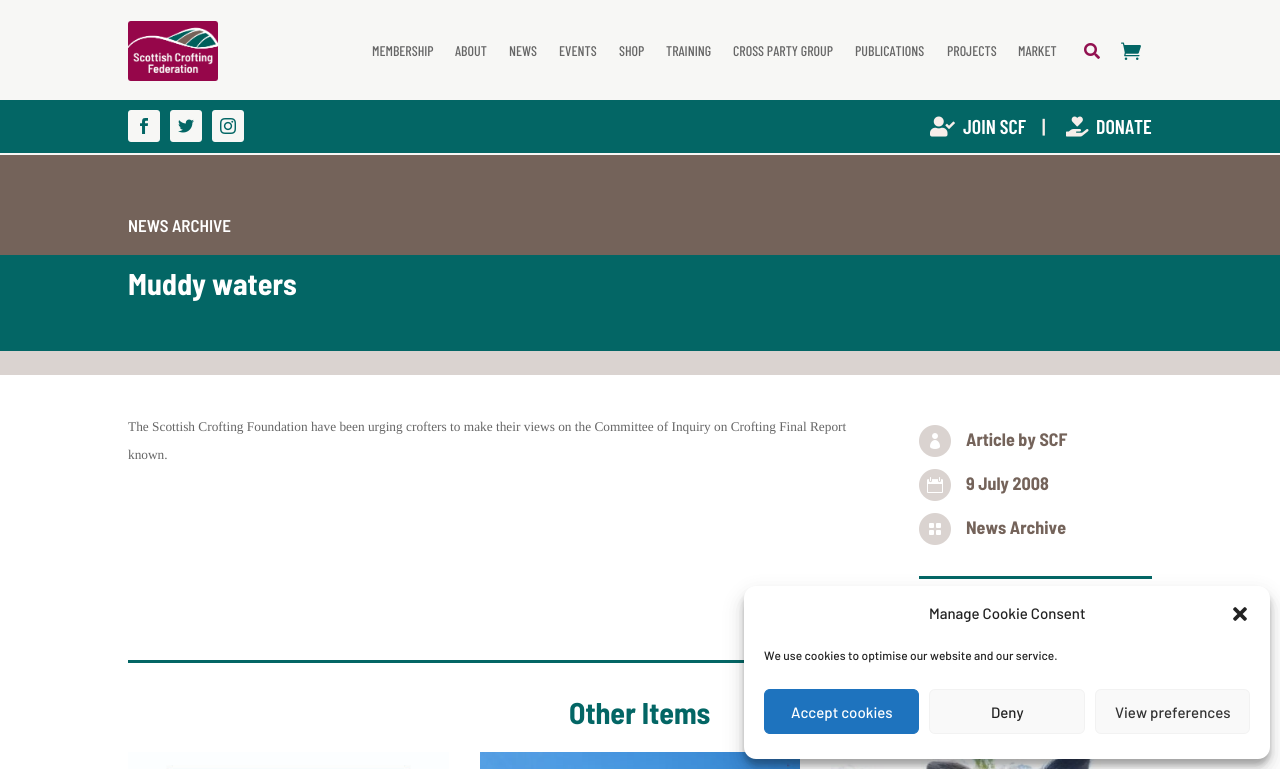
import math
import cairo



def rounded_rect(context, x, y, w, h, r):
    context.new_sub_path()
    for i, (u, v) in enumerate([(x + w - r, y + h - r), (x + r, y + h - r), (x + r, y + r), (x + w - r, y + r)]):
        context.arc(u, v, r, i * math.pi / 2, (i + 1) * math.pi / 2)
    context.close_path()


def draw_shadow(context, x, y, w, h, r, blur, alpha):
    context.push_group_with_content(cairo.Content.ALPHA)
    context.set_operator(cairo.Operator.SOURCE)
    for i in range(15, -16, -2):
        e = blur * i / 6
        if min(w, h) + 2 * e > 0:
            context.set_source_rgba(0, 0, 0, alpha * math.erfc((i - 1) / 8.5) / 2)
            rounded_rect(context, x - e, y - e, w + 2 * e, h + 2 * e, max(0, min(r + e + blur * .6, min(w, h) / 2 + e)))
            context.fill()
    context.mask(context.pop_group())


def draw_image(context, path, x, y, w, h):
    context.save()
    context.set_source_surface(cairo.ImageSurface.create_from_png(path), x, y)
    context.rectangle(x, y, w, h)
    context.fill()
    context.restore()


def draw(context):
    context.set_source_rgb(1, 1, 1)
    context.paint()
    context.set_source_rgb(247 / 255, 247 / 255, 245 / 255)
    context.rectangle(0, 0, 1280, 155)
    context.fill()
    draw_image(context, "images/1.png", 128, 21, 90, 60)
    draw_image(context, "images/2.png", 1084, 43, 16, 16)
    draw_image(context, "images/3.png", 1121, 42, 20, 18)
    context.set_source_rgb(3 / 255, 102 / 255, 101 / 255)
    context.rectangle(0, 100, 1280, 53)
    context.fill()
    context.set_source_rgb(247 / 255, 247 / 255, 245 / 255)
    rounded_rect(context, 128, 110, 32, 32, 3)
    context.fill()
    draw_image(context, "images/4.png", 140, 118, 8, 16)
    rounded_rect(context, 170, 110, 32, 32, 3)
    context.fill()
    draw_image(context, "images/5.png", 178, 119, 16, 14)
    rounded_rect(context, 212, 110, 32, 32, 3)
    context.fill()
    draw_image(context, "images/6.png", 220, 118, 16, 16)
    draw_image(context, "images/7.png", 930, 116, 25, 21)
    draw_image(context, "images/8.png", 1066, 116, 23, 21)
    context.set_source_rgb(116 / 255, 99 / 255, 90 / 255)
    context.rectangle(0, 155, 1280, 100)
    context.fill()
    context.set_source_rgb(3 / 255, 102 / 255, 101 / 255)
    context.rectangle(0, 255, 1280, 96)
    context.fill()
    context.set_source_rgb(218 / 255, 211 / 255, 208 / 255)
    context.rectangle(0, 351, 1280, 24)
    context.fill()
    context.arc(935, 441, 16, 0, 2 * math.pi)
    context.fill()
    draw_image(context, "images/9.png", 930, 433, 10, 16)
    context.arc(935, 485, 16, 0, 2 * math.pi)
    context.fill()
    draw_image(context, "images/10.png", 927, 477, 16, 16)
    context.arc(935, 529, 16, 0, 2 * math.pi)
    context.fill()
    draw_image(context, "images/11.png", 929, 523, 12, 12)
    context.set_source_rgb(3 / 255, 102 / 255, 101 / 255)
    context.rectangle(919, 576, 233, 3)
    context.fill()
    context.rectangle(128, 660, 616, 3)
    context.fill()
    draw_image(context, "images/12.png", 128, 752, 321, 17)
    draw_image(context, "images/13.png", 480, 752, 320, 17)
    draw_image(context, "images/14.png", 831, 759, 321, 10)
    context.set_source_rgb(0, 0, 0)
    draw_shadow(context, 744, 592, 526, 173, 12, 3, 0.23)
    draw_shadow(context, 744, 596, 526, 173, 12, 10, 0.19)
    context.set_source_rgb(1, 1, 1)
    rounded_rect(context, 744, 586, 526, 173, 12)
    context.fill()
    draw_image(context, "images/15.png", 1233, 607, 14, 14)
    context.set_source_rgb(30 / 255, 115 / 255, 190 / 255)
    rounded_rect(context, 764.5, 689.5, 154, 44, 5.5)
    context.fill_preserve()
    context.set_line_width(1)
    context.stroke()
    context.set_source_rgb(249 / 255, 249 / 255, 249 / 255)
    rounded_rect(context, 929.5, 689.5, 155, 44, 5.5)
    context.fill_preserve()
    context.set_source_rgb(242 / 255, 242 / 255, 242 / 255)
    context.stroke()
    context.set_source_rgb(249 / 255, 249 / 255, 249 / 255)
    rounded_rect(context, 1095.5, 689.5, 154, 44, 5.5)
    context.fill_preserve()
    context.set_source_rgb(242 / 255, 242 / 255, 242 / 255)
    context.stroke()
    context.select_font_face("Barlow Condensed Medium")
    context.set_font_size(14)
    context.set_source_rgb(102 / 255, 102 / 255, 102 / 255)
    context.move_to(372, 56)
    context.show_text("MEMBERSHIP")
    context.move_to(455, 56)
    context.show_text("ABOUT")
    context.move_to(509, 56)
    context.show_text("NEWS")
    context.move_to(559, 56)
    context.show_text("EVENTS")
    context.move_to(619, 56)
    context.show_text("SHOP")
    context.move_to(666, 56)
    context.show_text("TRAINING")
    context.move_to(733, 56)
    context.show_text("CROSS PARTY GROUP")
    context.move_to(855, 56)
    context.show_text("PUBLICATIONS")
    context.move_to(947, 56)
    context.show_text("PROJECTS")
    context.move_to(1018, 56)
    context.show_text("MARKET")
    context.select_font_face("Barlow Condensed SemiBold")
    context.set_font_size(20)
    context.set_source_rgb(1, 1, 1)
    context.move_to(963, 134)
    context.show_text("JOIN SCF")
    context.set_source_rgb(247 / 255, 238 / 255, 234 / 255)
    context.move_to(1042, 134)
    context.show_text("|")
    context.set_source_rgb(1, 1, 1)
    context.move_to(1096, 134)
    context.show_text("DONATE")
    context.select_font_face("Barlow Semi Condensed SemiBold")
    context.set_font_size(17)
    context.move_to(128, 232)
    context.show_text("NEWS ARCHIVE")
    context.select_font_face("Barlow Semi Condensed", cairo.FontSlant.NORMAL, cairo.FontWeight.BOLD)
    context.set_font_size(30)
    context.move_to(128, 295)
    context.show_text("Muddy waters")
    context.select_font_face("Liberation Serif")
    context.set_font_size(13.33)
    context.set_source_rgb(102 / 255, 102 / 255, 102 / 255)
    context.move_to(128, 431)
    context.show_text("The Scottish Crofting Foundation have been urging crofters to make their views on the Committee of Inquiry on Crofting Final Report")
    context.move_to(128, 459)
    context.show_text("known.")
    context.select_font_face("Barlow Semi Condensed", cairo.FontSlant.NORMAL, cairo.FontWeight.BOLD)
    context.set_font_size(18)
    context.set_source_rgb(116 / 255, 99 / 255, 90 / 255)
    context.move_to(966, 446)
    context.show_text("Article by SCF")
    context.move_to(966, 490)
    context.show_text("9 July 2008")
    context.move_to(966, 534)
    context.show_text("News Archive")
    context.set_font_size(30)
    context.set_source_rgb(3 / 255, 102 / 255, 101 / 255)
    context.move_to(569, 724)
    context.show_text("Other Items")
    context.select_font_face("Barlow Medium")
    context.set_font_size(15)
    context.set_source_rgb(34 / 255, 34 / 255, 34 / 255)
    context.move_to(929, 619)
    context.show_text("Manage Cookie Consent")
    context.set_font_size(12)
    context.move_to(764, 660)
    context.show_text("We use cookies to optimise our website and our service.")
    context.set_font_size(15)
    context.set_source_rgb(1, 1, 1)
    context.move_to(791, 718)
    context.show_text("Accept cookies")
    context.set_source_rgb(34 / 255, 34 / 255, 34 / 255)
    context.move_to(991, 718)
    context.show_text("Deny")
    context.set_source_rgb(51 / 255, 51 / 255, 51 / 255)
    context.move_to(1115, 718)
    context.show_text("View preferences")


surface = cairo.ImageSurface(cairo.Format.RGB24, 1280, 769)
context = cairo.Context(surface)
options = cairo.FontOptions()
options.set_hint_metrics(cairo.HintMetrics.OFF)
options.set_hint_style(cairo.HintStyle.NONE)
context.set_font_options(options)
context.set_miter_limit(4)
draw(context)
surface.write_to_png("out.png")
